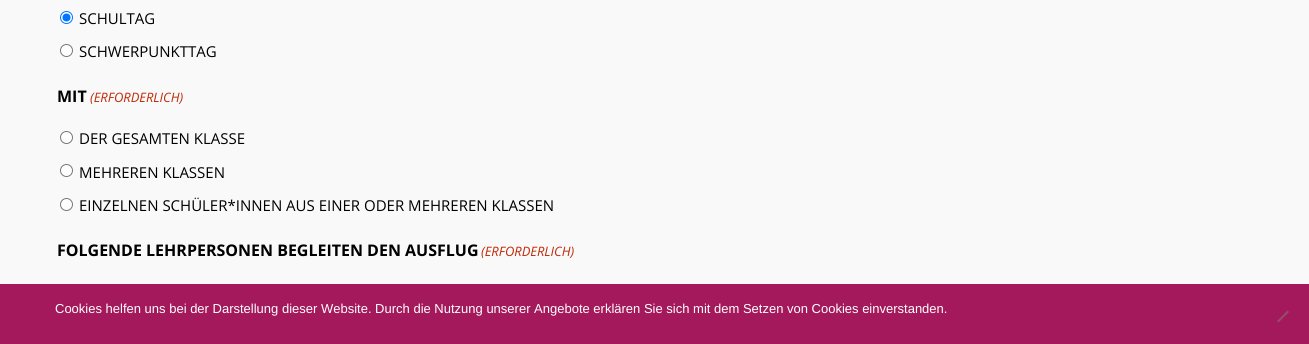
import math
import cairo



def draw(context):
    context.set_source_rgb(250 / 255, 249 / 255, 249 / 255)
    context.paint()
    context.set_source_rgb(1, 1, 1)
    context.arc(66.5, 17.5, 6, 0, 2 * math.pi)
    context.fill_preserve()
    context.set_source_rgb(0, 117 / 255, 1)
    context.set_line_width(1)
    context.stroke()
    context.arc(66.5, 17.5, 4, 0, 2 * math.pi)
    context.fill()
    context.set_source_rgb(1, 1, 1)
    context.arc(66.5, 50.5, 6, 0, 2 * math.pi)
    context.fill_preserve()
    context.set_source_rgb(118 / 255, 118 / 255, 118 / 255)
    context.stroke()
    context.set_source_rgb(1, 1, 1)
    context.arc(66.5, 137.5, 6, 0, 2 * math.pi)
    context.fill_preserve()
    context.set_source_rgb(118 / 255, 118 / 255, 118 / 255)
    context.stroke()
    context.set_source_rgb(1, 1, 1)
    context.arc(66.5, 170.5, 6, 0, 2 * math.pi)
    context.fill_preserve()
    context.set_source_rgb(118 / 255, 118 / 255, 118 / 255)
    context.stroke()
    context.set_source_rgb(1, 1, 1)
    context.arc(66.5, 204.5, 6, 0, 2 * math.pi)
    context.fill_preserve()
    context.set_source_rgb(118 / 255, 118 / 255, 118 / 255)
    context.stroke()
    context.set_source_rgb(163 / 255, 25 / 255, 91 / 255)
    context.rectangle(0, 284, 1309, 60)
    context.fill()
    context.set_source_rgb(146 / 255, 77 / 255, 110 / 255)
    context.new_path()
    context.move_to(1287.5, 310.5)
    context.line_to(1289, 312)
    context.line_to(1278.5, 322.5)
    context.line_to(1277, 321)
    context.close_path()
    context.fill()
    context.select_font_face("Open Sans")
    context.set_font_size(15)
    context.set_source_rgb(0, 0, 0)
    context.move_to(79, 24)
    context.show_text("SCHULTAG")
    context.move_to(79, 57)
    context.show_text("SCHWERPUNKTTAG")
    context.select_font_face("Open Sans", cairo.FontSlant.NORMAL, cairo.FontWeight.BOLD)
    context.set_font_size(16)
    context.move_to(57, 102)
    context.show_text("MIT")
    context.select_font_face("Open Sans", cairo.FontSlant.ITALIC)
    context.set_font_size(13)
    context.set_source_rgb(192 / 255, 43 / 255, 10 / 255)
    context.move_to(90, 102)
    context.show_text("(ERFORDERLICH)")
    context.select_font_face("Open Sans")
    context.set_font_size(15)
    context.set_source_rgb(0, 0, 0)
    context.move_to(79, 144)
    context.show_text("DER GESAMTEN KLASSE")
    context.move_to(79, 178)
    context.show_text("MEHREREN KLASSEN")
    context.move_to(79, 211)
    context.show_text("EINZELNEN SCHÜLER*INNEN AUS EINER ODER MEHREREN KLASSEN")
    context.select_font_face("Open Sans", cairo.FontSlant.NORMAL, cairo.FontWeight.BOLD)
    context.set_font_size(16)
    context.move_to(57, 256)
    context.show_text("FOLGENDE LEHRPERSONEN BEGLEITEN DEN AUSFLUG")
    context.select_font_face("Open Sans", cairo.FontSlant.ITALIC)
    context.set_font_size(13)
    context.set_source_rgb(192 / 255, 43 / 255, 10 / 255)
    context.move_to(481, 256)
    context.show_text("(ERFORDERLICH)")
    context.select_font_face("Liberation Sans")
    context.set_source_rgb(1, 1, 1)
    context.move_to(55, 313)
    context.show_text("Cookies helfen uns bei der Darstellung dieser Website. Durch die Nutzung unserer Angebote erklären Sie sich mit dem Setzen von Cookies einverstanden.")


surface = cairo.ImageSurface(cairo.Format.RGB24, 1309, 344)
context = cairo.Context(surface)
options = cairo.FontOptions()
options.set_hint_metrics(cairo.HintMetrics.OFF)
options.set_hint_style(cairo.HintStyle.NONE)
context.set_font_options(options)
context.set_miter_limit(4)
draw(context)
surface.write_to_png("out.png")
